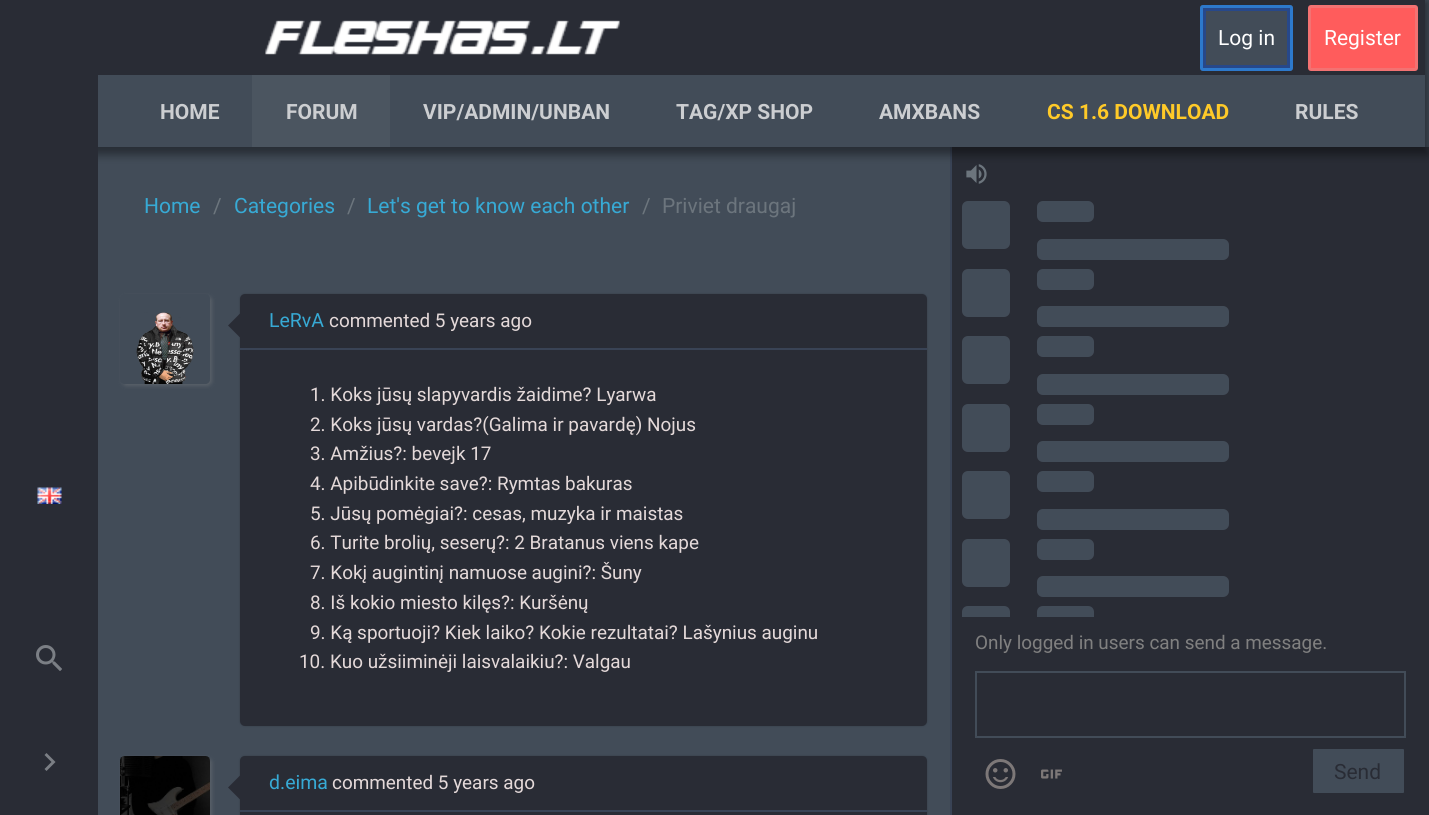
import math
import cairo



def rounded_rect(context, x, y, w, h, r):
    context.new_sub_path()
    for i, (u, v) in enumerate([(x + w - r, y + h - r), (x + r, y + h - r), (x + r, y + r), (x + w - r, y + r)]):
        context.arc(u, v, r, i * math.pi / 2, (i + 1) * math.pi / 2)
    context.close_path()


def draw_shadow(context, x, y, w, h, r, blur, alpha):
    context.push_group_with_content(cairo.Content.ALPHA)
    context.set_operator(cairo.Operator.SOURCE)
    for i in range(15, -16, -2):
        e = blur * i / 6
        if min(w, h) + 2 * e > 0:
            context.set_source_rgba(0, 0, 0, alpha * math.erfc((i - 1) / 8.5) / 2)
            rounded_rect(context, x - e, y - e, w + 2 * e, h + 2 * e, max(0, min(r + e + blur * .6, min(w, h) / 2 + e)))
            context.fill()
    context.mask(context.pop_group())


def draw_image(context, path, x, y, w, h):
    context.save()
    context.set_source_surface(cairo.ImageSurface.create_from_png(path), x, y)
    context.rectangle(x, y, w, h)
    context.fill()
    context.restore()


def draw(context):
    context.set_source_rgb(66 / 255, 76 / 255, 88 / 255)
    context.paint()
    context.set_source_rgb(41 / 255, 44 / 255, 53 / 255)
    context.rectangle(952, 147, 477, 668)
    context.fill()
    context.set_source_rgb(57 / 255, 67 / 255, 85 / 255)
    context.rectangle(950, 147, 2, 668)
    context.fill()
    draw_image(context, "images/6.png", 966, 164, 21, 20)
    context.save()
    context.set_fill_rule(cairo.FillRule.EVEN_ODD)
    context.new_path()
    context.move_to(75, 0)
    context.line_to(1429, 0)
    context.line_to(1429, 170)
    context.line_to(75, 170)
    context.close_path()
    context.move_to(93, 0)
    context.line_to(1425, 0)
    context.line_to(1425, 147)
    context.line_to(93, 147)
    context.close_path()
    context.clip()
    context.set_source_rgb(0, 0, 0)
    draw_shadow(context, 90, 2, 1338, 153, 0, 4.5, 0.4)
    context.restore()
    context.set_source_rgb(41 / 255, 44 / 255, 53 / 255)
    context.rectangle(0, 0, 98, 815)
    context.fill()
    draw_image(context, "images/1.png", 37, 487, 25, 17)
    draw_image(context, "images/2.png", 36, 645, 26, 26)
    context.set_source_rgb(123 / 255, 127 / 255, 133 / 255)
    context.new_path()
    context.move_to(44.5, 769)
    context.line_to(51.5, 762)
    context.line_to(44.5, 755)
    context.line_to(46.5, 753)
    context.line_to(55.5, 762)
    context.line_to(46.5, 771)
    context.close_path()
    context.fill()
    context.set_source_rgb(41 / 255, 44 / 255, 53 / 255)
    context.rectangle(98, 0, 1327, 75)
    context.fill()
    draw_image(context, "images/3.png", 265, 20, 355, 35)
    context.set_source_rgb(66 / 255, 76 / 255, 88 / 255)
    rounded_rect(context, 1200, 5, 93, 66, 3)
    context.fill()
    context.rectangle(1204.5, 9.5, 84, 57)
    context.set_source_rgb(39 / 255, 72 / 255, 138 / 255)
    context.set_line_width(3)
    context.stroke()
    rounded_rect(context, 1201.5, 6.5, 90, 63, 1.5)
    context.set_source_rgb(45 / 255, 121 / 255, 204 / 255)
    context.stroke()
    context.set_source_rgb(1, 92 / 255, 92 / 255)
    rounded_rect(context, 1309.5, 6.5, 107, 63, 1.5)
    context.fill_preserve()
    context.set_source_rgb(243 / 255, 114 / 255, 114 / 255)
    context.stroke()
    context.set_source_rgb(75 / 255, 85 / 255, 96 / 255)
    context.rectangle(252, 75, 138, 72)
    context.fill()
    context.save()
    context.set_fill_rule(cairo.FillRule.EVEN_ODD)
    context.new_path()
    context.move_to(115, 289)
    context.line_to(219, 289)
    context.line_to(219, 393)
    context.line_to(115, 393)
    context.close_path()
    context.move_to(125, 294)
    context.line_to(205, 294)
    context.curve_to(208, 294, 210, 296, 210, 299)
    context.line_to(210, 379)
    context.curve_to(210, 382, 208, 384, 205, 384)
    context.line_to(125, 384)
    context.curve_to(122, 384, 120, 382, 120, 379)
    context.line_to(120, 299)
    context.curve_to(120, 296, 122, 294, 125, 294)
    context.close_path()
    context.clip()
    context.set_source_rgb(139 / 255, 139 / 255, 139 / 255)
    draw_shadow(context, 122, 296, 90, 90, 5, 2, 0.32)
    context.restore()
    draw_image(context, "images/4.png", 136, 312, 58, 72)
    context.set_source_rgb(0, 0, 0)
    draw_shadow(context, 240, 294, 687, 432, 5, 1, 0.2)
    context.set_source_rgb(41 / 255, 44 / 255, 53 / 255)
    rounded_rect(context, 240, 294, 687, 432, 5)
    context.fill()
    context.set_source_rgb(57 / 255, 67 / 255, 85 / 255)
    context.rectangle(240, 348, 687, 2)
    context.fill()
    context.set_source_rgb(41 / 255, 44 / 255, 53 / 255)
    context.new_path()
    context.move_to(240, 313.5)
    context.line_to(240, 337.5)
    context.line_to(228, 325.5)
    context.close_path()
    context.fill()
    context.set_source_rgb(139 / 255, 139 / 255, 139 / 255)
    draw_shadow(context, 122, 758, 90, 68, 5, 2, 0.32)
    draw_image(context, "images/5.png", 120, 756, 90, 59)
    context.set_source_rgb(0, 0, 0)
    draw_shadow(context, 240, 756, 687, 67, 5, 1, 0.2)
    context.set_source_rgb(41 / 255, 44 / 255, 53 / 255)
    context.new_path()
    context.move_to(245, 756)
    context.line_to(922, 756)
    context.curve_to(925, 756, 927, 758, 927, 761)
    context.line_to(927, 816)
    context.line_to(240, 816)
    context.line_to(240, 761)
    context.curve_to(240, 758, 242, 756, 245, 756)
    context.close_path()
    context.fill()
    context.set_source_rgb(57 / 255, 67 / 255, 85 / 255)
    context.rectangle(240, 810, 687, 2)
    context.fill()
    context.set_source_rgb(41 / 255, 44 / 255, 53 / 255)
    context.new_path()
    context.move_to(240, 775.5)
    context.line_to(240, 799.5)
    context.line_to(228, 787.5)
    context.close_path()
    context.fill()
    context.set_source_rgb(66 / 255, 76 / 255, 88 / 255)
    rounded_rect(context, 962, 201, 48, 48, 6)
    context.fill()
    rounded_rect(context, 1037, 201, 57, 21, 6)
    context.fill()
    rounded_rect(context, 1037, 239, 192, 21, 6)
    context.fill()
    rounded_rect(context, 962, 269, 48, 48, 6)
    context.fill()
    rounded_rect(context, 1037, 269, 57, 21, 6)
    context.fill()
    rounded_rect(context, 1037, 306, 192, 21, 6)
    context.fill()
    rounded_rect(context, 962, 336, 48, 48, 6)
    context.fill()
    rounded_rect(context, 1037, 336, 57, 21, 6)
    context.fill()
    rounded_rect(context, 1037, 374, 192, 21, 6)
    context.fill()
    rounded_rect(context, 962, 404, 48, 48, 6)
    context.fill()
    rounded_rect(context, 1037, 404, 57, 21, 6)
    context.fill()
    rounded_rect(context, 1037, 441, 192, 21, 6)
    context.fill()
    rounded_rect(context, 962, 471, 48, 48, 6)
    context.fill()
    rounded_rect(context, 1037, 471, 57, 21, 6)
    context.fill()
    rounded_rect(context, 1037, 509, 192, 21, 6)
    context.fill()
    rounded_rect(context, 962, 539, 48, 48, 6)
    context.fill()
    rounded_rect(context, 1037, 539, 57, 21, 6)
    context.fill()
    rounded_rect(context, 1037, 576, 192, 21, 6)
    context.fill()
    context.new_path()
    context.move_to(968, 606)
    context.line_to(1004, 606)
    context.curve_to(1007.5, 606, 1010, 608.5, 1010, 612)
    context.line_to(1010, 617)
    context.line_to(962, 617)
    context.line_to(962, 612)
    context.curve_to(962, 608.5, 964.5, 606, 968, 606)
    context.close_path()
    context.fill()
    context.new_path()
    context.move_to(1043, 606)
    context.line_to(1088, 606)
    context.curve_to(1091.5, 606, 1094, 608.5, 1094, 612)
    context.line_to(1094, 617)
    context.line_to(1037, 617)
    context.line_to(1037, 612)
    context.curve_to(1037, 608.5, 1039.5, 606, 1043, 606)
    context.close_path()
    context.fill()
    context.rectangle(976, 672, 429, 65)
    context.set_line_width(2)
    context.stroke()
    draw_image(context, "images/7.png", 985, 759, 31, 30)
    draw_image(context, "images/8.png", 1041, 769, 21, 10)
    rounded_rect(context, 1312, 748, 93, 46, 2)
    context.fill_preserve()
    context.set_source_rgb(41 / 255, 44 / 255, 53 / 255)
    context.stroke()
    context.select_font_face("Roboto")
    context.set_font_size(21)
    context.set_source_rgb(1, 1, 1)
    context.move_to(1218, 45)
    context.show_text("Log in")
    context.move_to(1324, 45)
    context.show_text("Register")
    context.select_font_face("Roboto", cairo.FontSlant.NORMAL, cairo.FontWeight.BOLD)
    context.set_source_rgb(204 / 255, 206 / 255, 209 / 255)
    context.move_to(160, 119)
    context.show_text("HOME")
    context.move_to(286, 119)
    context.show_text("FORUM")
    context.move_to(423, 119)
    context.show_text("VIP/ADMIN/UNBAN")
    context.move_to(676, 119)
    context.show_text("TAG/XP SHOP")
    context.move_to(879, 119)
    context.show_text("AMXBANS")
    context.set_source_rgb(1, 202 / 255, 40 / 255)
    context.move_to(1047, 119)
    context.show_text("CS 1.6 DOWNLOAD")
    context.set_source_rgb(204 / 255, 206 / 255, 209 / 255)
    context.move_to(1295, 119)
    context.show_text("RULES")
    context.select_font_face("Roboto")
    context.set_source_rgb(55 / 255, 170 / 255, 213 / 255)
    context.move_to(144, 213)
    context.show_text("Home")
    context.set_source_rgb(108 / 255, 117 / 255, 125 / 255)
    context.move_to(213, 213)
    context.show_text("/")
    context.set_source_rgb(55 / 255, 170 / 255, 213 / 255)
    context.move_to(234, 213)
    context.show_text("Categories")
    context.set_source_rgb(108 / 255, 117 / 255, 125 / 255)
    context.move_to(347, 213)
    context.show_text("/")
    context.set_source_rgb(55 / 255, 170 / 255, 213 / 255)
    context.move_to(367, 213)
    context.show_text("Let's get to know each other")
    context.set_source_rgb(108 / 255, 117 / 255, 125 / 255)
    context.move_to(642, 213)
    context.show_text("/")
    context.move_to(662, 213)
    context.show_text("Priviet draugaj")
    context.set_font_size(19.5)
    context.set_source_rgb(55 / 255, 170 / 255, 213 / 255)
    context.move_to(269, 327)
    context.show_text("LeRvA")
    context.set_font_size(18.9)
    context.set_source_rgb(228 / 255, 217 / 255, 217 / 255)
    context.move_to(329, 327)
    context.show_text("commented 5 years ago")
    context.move_to(310, 401)
    context.show_text("1. Koks jūsų slapyvardis žaidime? Lyarwa")
    context.move_to(310, 431)
    context.show_text("2. Koks jūsų vardas?(Galima ir pavardę) Nojus")
    context.move_to(310, 460)
    context.show_text("3. Amžius?: bevejk 17")
    context.move_to(310, 490)
    context.show_text("4. Apibūdinkite save?: Rymtas bakuras")
    context.move_to(310, 520)
    context.show_text("5. Jūsų pomėgiai?: cesas, muzyka ir maistas")
    context.move_to(310, 549)
    context.show_text("6. Turite brolių, seserų?: 2 Bratanus viens kape")
    context.move_to(310, 579)
    context.show_text("7. Kokį augintinį namuose augini?: Šuny")
    context.move_to(310, 609)
    context.show_text("8. Iš kokio miesto kilęs?: Kuršėnų")
    context.move_to(310, 639)
    context.show_text("9. Ką sportuoji? Kiek laiko? Kokie rezultatai? Lašynius auginu")
    context.move_to(299, 668)
    context.show_text("10. Kuo užsiiminėji laisvalaikiu?: Valgau")
    context.set_font_size(19.5)
    context.set_source_rgb(55 / 255, 170 / 255, 213 / 255)
    context.move_to(269, 789)
    context.show_text("d.eima")
    context.set_font_size(18.9)
    context.set_source_rgb(228 / 255, 217 / 255, 217 / 255)
    context.move_to(332, 789)
    context.show_text("commented 5 years ago")
    context.set_source_rgb(128 / 255, 128 / 255, 128 / 255)
    context.move_to(975, 649)
    context.show_text("Only logged in users can send a message.")
    context.set_font_size(21)
    context.set_source_rgb(41 / 255, 44 / 255, 53 / 255)
    context.move_to(1334, 779)
    context.show_text("Send")


surface = cairo.ImageSurface(cairo.Format.RGB24, 1429, 815)
context = cairo.Context(surface)
options = cairo.FontOptions()
options.set_hint_metrics(cairo.HintMetrics.OFF)
options.set_hint_style(cairo.HintStyle.NONE)
context.set_font_options(options)
context.set_miter_limit(4)
draw(context)
surface.write_to_png("out.png")
